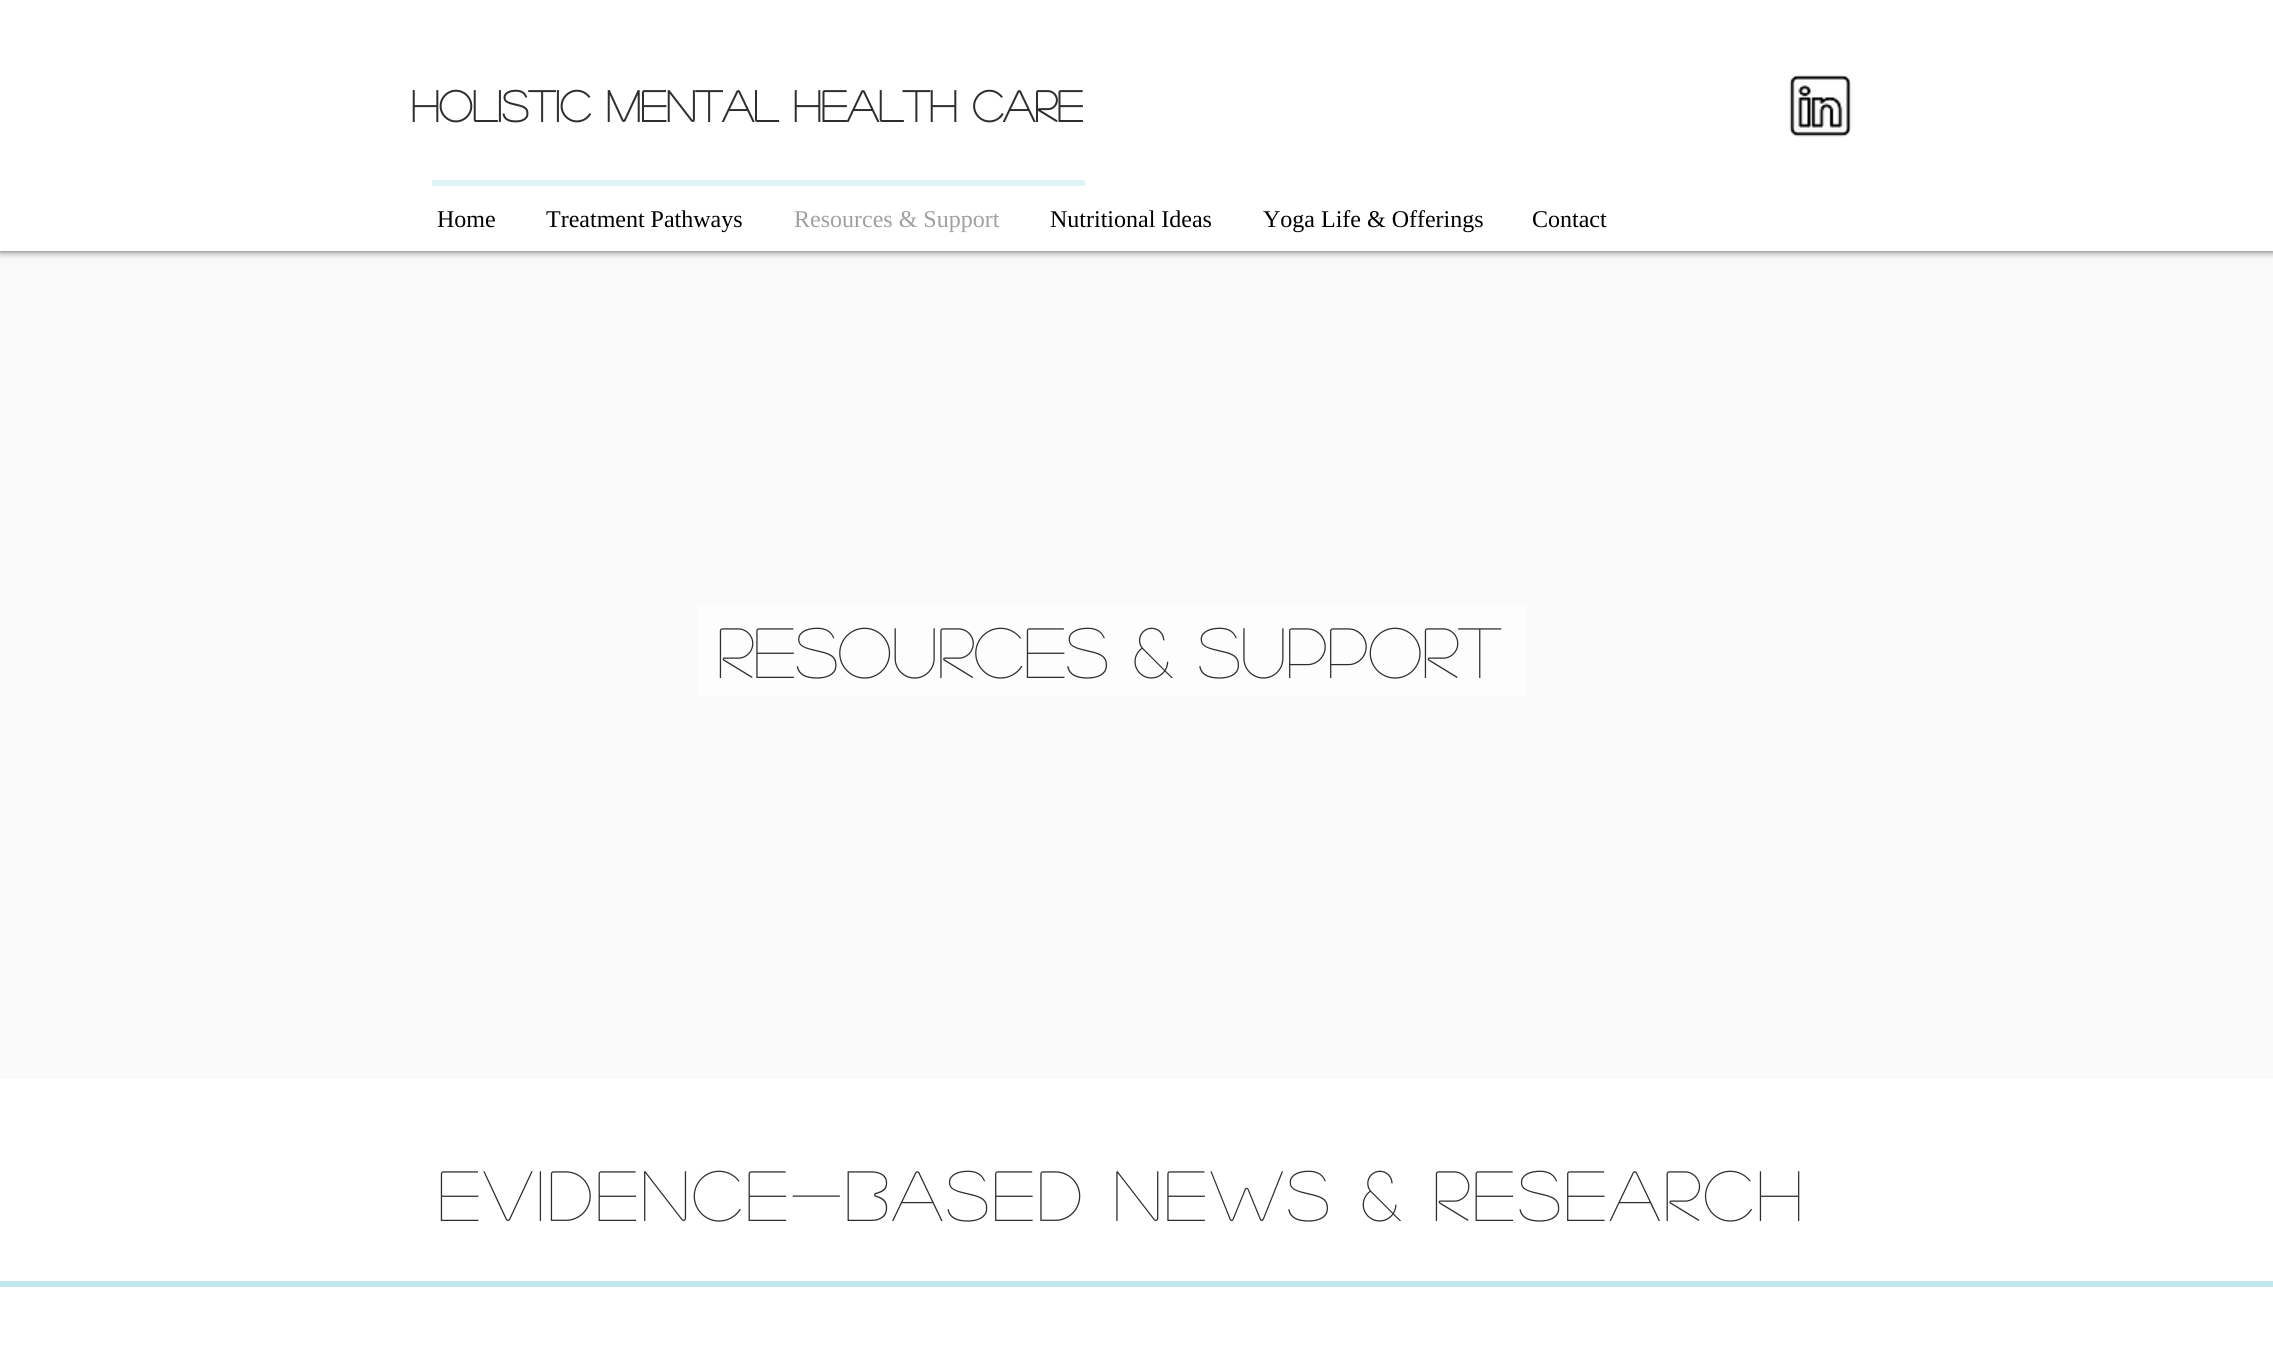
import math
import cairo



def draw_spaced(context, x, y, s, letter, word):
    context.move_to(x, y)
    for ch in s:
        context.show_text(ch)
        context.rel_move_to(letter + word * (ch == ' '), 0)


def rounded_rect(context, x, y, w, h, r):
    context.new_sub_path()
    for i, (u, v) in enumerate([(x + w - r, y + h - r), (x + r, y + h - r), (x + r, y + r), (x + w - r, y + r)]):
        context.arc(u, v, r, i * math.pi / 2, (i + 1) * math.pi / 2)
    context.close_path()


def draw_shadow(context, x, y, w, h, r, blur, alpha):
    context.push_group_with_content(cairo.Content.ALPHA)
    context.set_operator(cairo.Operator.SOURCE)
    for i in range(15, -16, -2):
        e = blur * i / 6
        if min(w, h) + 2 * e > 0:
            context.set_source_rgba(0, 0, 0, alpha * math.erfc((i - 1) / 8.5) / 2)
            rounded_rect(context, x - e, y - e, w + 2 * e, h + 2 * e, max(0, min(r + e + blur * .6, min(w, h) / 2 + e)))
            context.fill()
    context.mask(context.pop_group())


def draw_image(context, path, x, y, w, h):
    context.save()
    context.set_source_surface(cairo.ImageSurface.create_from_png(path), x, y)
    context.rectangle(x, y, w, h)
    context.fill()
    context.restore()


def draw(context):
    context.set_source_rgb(1, 1, 1)
    context.paint()
    context.set_source_rgb(250 / 255, 250 / 255, 250 / 255)
    context.rectangle(0, 251, 2273, 828)
    context.fill()
    context.set_source_rgb(0, 0, 0)
    draw_shadow(context, 0, 0, 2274, 251, 0, 4, 0.7)
    context.set_source_rgb(1, 1, 1)
    context.rectangle(0, 0, 2273, 251)
    context.fill()
    draw_image(context, "images/1.png", 1789, 74, 63, 63)
    context.set_source_rgb(223 / 255, 242 / 255, 245 / 255)
    context.rectangle(432, 180, 653, 6)
    context.fill()
    context.set_source_rgb(253 / 255, 253 / 255, 253 / 255)
    context.rectangle(698, 605, 828, 91)
    context.fill()
    context.set_source_rgb(194 / 255, 230 / 255, 237 / 255)
    context.rectangle(0, 1281, 2273, 6)
    context.fill()
    context.select_font_face("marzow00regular", cairo.FontSlant.NORMAL, cairo.FontWeight.BOLD)
    context.set_font_size(43.5)
    context.set_source_rgb(47 / 255, 46 / 255, 46 / 255)
    context.move_to(411, 122)
    context.show_text("Holistic Mental Health Care")
    context.select_font_face("Liberation Serif")
    context.set_font_size(24)
    context.set_source_rgb(0, 0, 0)
    context.move_to(437, 227)
    context.show_text("Home")
    context.move_to(546, 227)
    context.show_text("Treatment Pathways")
    context.set_source_rgb(160 / 255, 160 / 255, 159 / 255)
    context.move_to(794, 227)
    context.show_text("Resources & Support")
    context.set_source_rgb(0, 0, 0)
    context.move_to(1050, 227)
    context.show_text("Nutritional Ideas")
    context.move_to(1263, 227)
    context.show_text("Yoga Life & Offerings")
    context.move_to(1532, 227)
    context.show_text("Contact")
    context.select_font_face("marzow00regular")
    context.set_font_size(70.5)
    context.set_source_rgb(47 / 255, 46 / 255, 46 / 255)
    context.move_to(717, 678)
    context.show_text("Resources & Support")
    draw_spaced(context, 438, 1221, "Evidence-Based News & Research", 3.5, 0)


surface = cairo.ImageSurface(cairo.Format.RGB24, 2273, 1366)
context = cairo.Context(surface)
options = cairo.FontOptions()
options.set_hint_metrics(cairo.HintMetrics.OFF)
options.set_hint_style(cairo.HintStyle.NONE)
context.set_font_options(options)
context.set_miter_limit(4)
draw(context)
surface.write_to_png("out.png")
